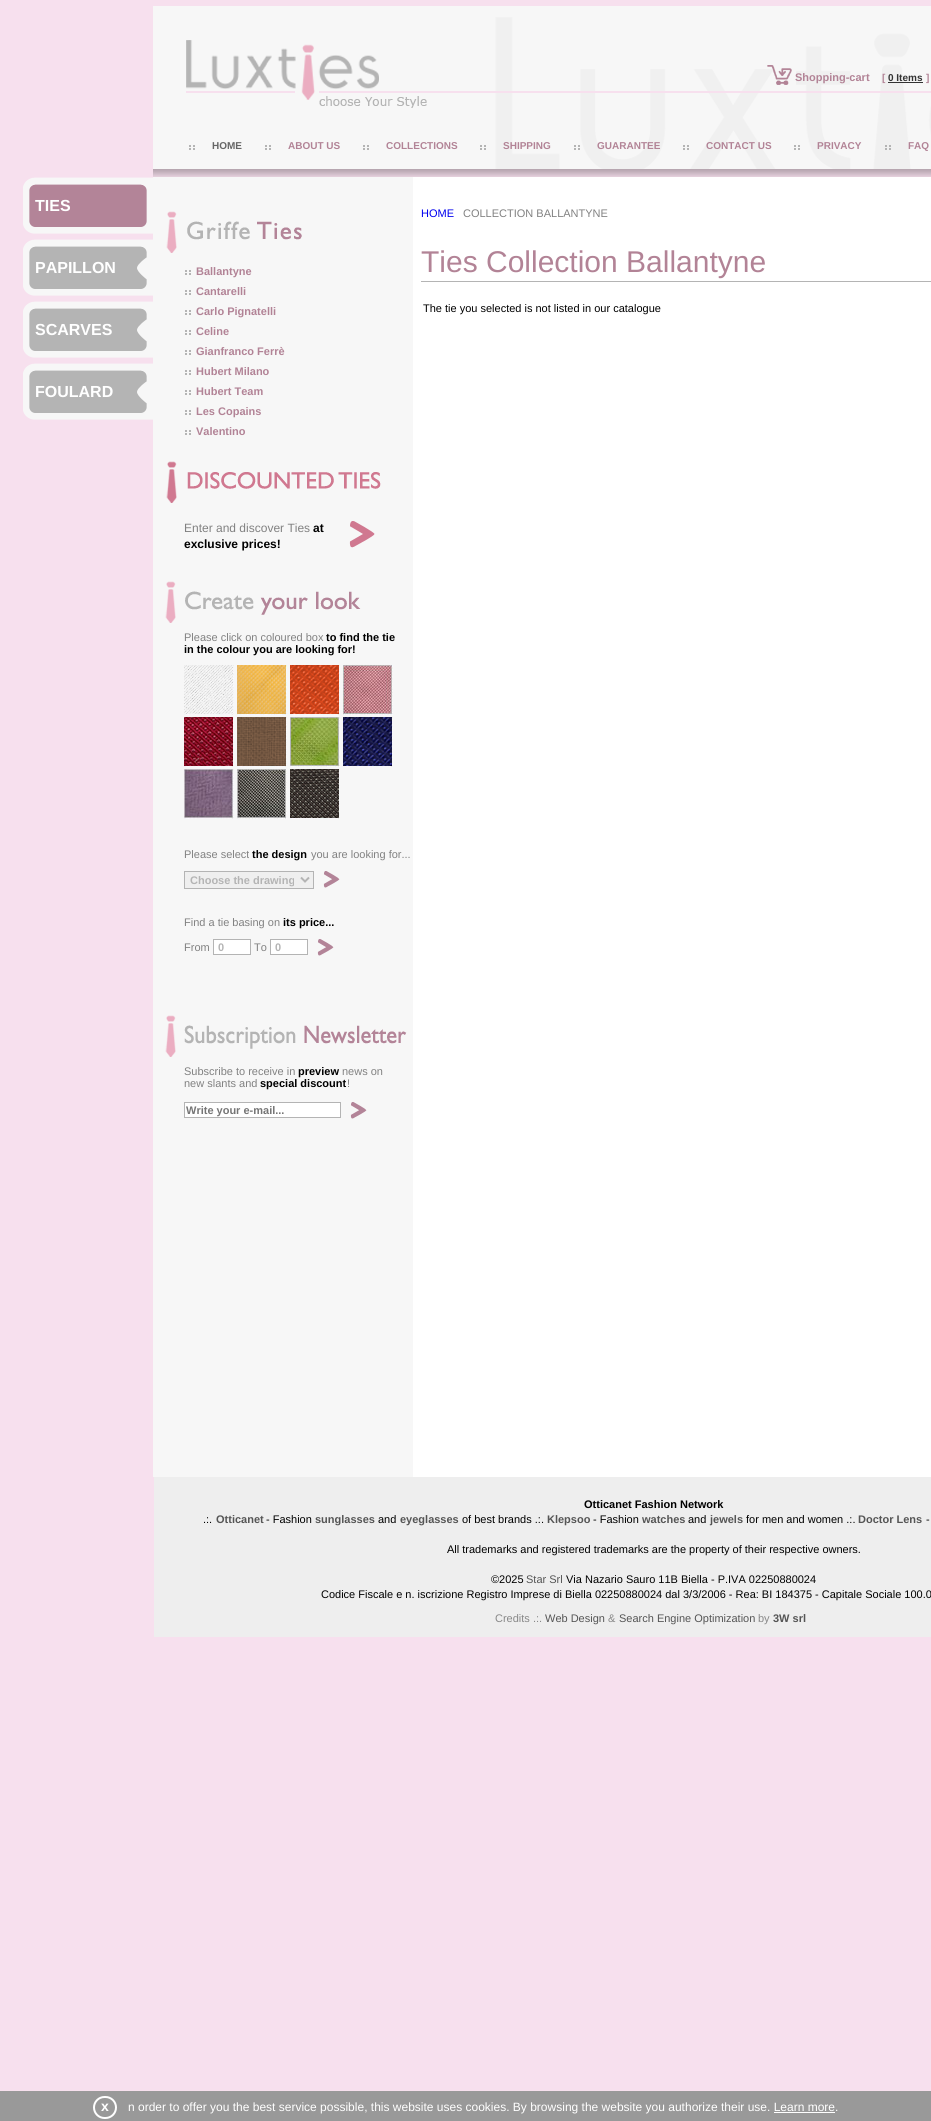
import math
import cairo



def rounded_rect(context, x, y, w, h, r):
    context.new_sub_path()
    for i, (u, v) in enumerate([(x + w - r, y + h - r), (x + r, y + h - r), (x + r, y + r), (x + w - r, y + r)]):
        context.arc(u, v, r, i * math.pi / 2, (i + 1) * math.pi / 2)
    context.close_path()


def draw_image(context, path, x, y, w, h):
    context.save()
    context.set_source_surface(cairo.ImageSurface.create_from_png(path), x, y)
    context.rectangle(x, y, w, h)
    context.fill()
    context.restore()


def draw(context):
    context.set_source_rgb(247 / 255, 224 / 255, 238 / 255)
    context.paint()
    draw_image(context, "images/1.png", 153, 6, 778, 171)
    draw_image(context, "images/2.png", 767, 65, 25, 20)
    context.set_source_rgb(51 / 255, 51 / 255, 51 / 255)
    context.rectangle(888, 82, 35, 1)
    context.fill()
    draw_image(context, "images/3.png", 189, 145, 6, 5)
    draw_image(context, "images/3.png", 265, 145, 6, 5)
    draw_image(context, "images/3.png", 363, 145, 6, 5)
    draw_image(context, "images/3.png", 480, 145, 6, 5)
    draw_image(context, "images/3.png", 574, 145, 6, 5)
    draw_image(context, "images/3.png", 683, 145, 6, 5)
    draw_image(context, "images/3.png", 794, 145, 6, 5)
    draw_image(context, "images/4.png", 885, 145, 6, 5)
    draw_image(context, "images/5.png", 23, 177, 130, 57)
    draw_image(context, "images/6.png", 23, 239, 130, 57)
    draw_image(context, "images/6.png", 23, 301, 130, 57)
    draw_image(context, "images/6.png", 23, 363, 130, 57)
    context.set_source_rgb(247 / 255, 247 / 255, 247 / 255)
    context.rectangle(153, 177, 260, 1300)
    context.fill()
    draw_image(context, "images/7.png", 166, 211, 136, 42)
    draw_image(context, "images/3.png", 185, 270, 6, 5)
    draw_image(context, "images/3.png", 185, 290, 6, 5)
    draw_image(context, "images/3.png", 185, 310, 6, 5)
    draw_image(context, "images/3.png", 185, 330, 6, 5)
    draw_image(context, "images/3.png", 185, 350, 6, 5)
    draw_image(context, "images/3.png", 185, 370, 6, 5)
    draw_image(context, "images/3.png", 185, 390, 6, 5)
    draw_image(context, "images/3.png", 185, 410, 6, 5)
    draw_image(context, "images/3.png", 185, 430, 6, 5)
    draw_image(context, "images/8.png", 166, 461, 215, 42)
    draw_image(context, "images/9.png", 349, 521, 26, 27)
    draw_image(context, "images/10.png", 165, 581, 196, 42)
    draw_image(context, "images/11.png", 184, 665, 50, 50)
    draw_image(context, "images/12.png", 237, 665, 50, 50)
    draw_image(context, "images/13.png", 290, 665, 50, 50)
    draw_image(context, "images/14.png", 343, 665, 50, 50)
    draw_image(context, "images/15.png", 184, 717, 50, 50)
    draw_image(context, "images/16.png", 237, 717, 50, 50)
    draw_image(context, "images/17.png", 290, 717, 50, 50)
    draw_image(context, "images/18.png", 343, 717, 50, 50)
    draw_image(context, "images/19.png", 184, 769, 50, 50)
    draw_image(context, "images/20.png", 237, 769, 50, 50)
    draw_image(context, "images/21.png", 290, 769, 50, 50)
    context.set_source_rgb(239 / 255, 239 / 255, 239 / 255)
    context.rectangle(184.5, 871.5, 129, 17)
    context.fill_preserve()
    context.set_source_rgb(180 / 255, 180 / 255, 180 / 255)
    context.set_line_width(1)
    context.stroke()
    context.new_path()
    context.move_to(301, 877.5)
    context.line_to(305, 881.5)
    context.line_to(309, 877.5)
    context.set_line_width(2)
    context.stroke()
    draw_image(context, "images/22.png", 323, 871, 17, 17)
    context.set_source_rgb(1, 1, 1)
    context.rectangle(213.5, 939.5, 37, 15)
    context.fill_preserve()
    context.set_source_rgb(180 / 255, 180 / 255, 180 / 255)
    context.set_line_width(1)
    context.stroke()
    context.set_source_rgb(1, 1, 1)
    context.rectangle(270.5, 939.5, 37, 15)
    context.fill_preserve()
    context.set_source_rgb(180 / 255, 180 / 255, 180 / 255)
    context.stroke()
    draw_image(context, "images/22.png", 317, 939, 17, 17)
    draw_image(context, "images/23.png", 165, 1015, 242, 42)
    context.set_source_rgb(1, 1, 1)
    context.rectangle(184.5, 1102.5, 156, 15)
    context.fill_preserve()
    context.set_source_rgb(180 / 255, 180 / 255, 180 / 255)
    context.stroke()
    draw_image(context, "images/22.png", 350, 1102, 17, 17)
    context.set_source_rgb(1, 1, 1)
    context.rectangle(413, 177, 518, 1300)
    context.fill()
    context.set_source_rgb(180 / 255, 180 / 255, 180 / 255)
    context.rectangle(421, 281, 510, 1)
    context.fill()
    context.set_source_rgb(238 / 255, 238 / 255, 238 / 255)
    context.rectangle(154, 1477, 777, 160)
    context.fill()
    context.set_source_rgb(153 / 255, 153 / 255, 153 / 255)
    context.rectangle(0, 2091, 931, 30)
    context.fill()
    rounded_rect(context, 94, 2097, 22, 21, 10.5)
    context.set_source_rgb(1, 1, 1)
    context.set_line_width(2)
    context.stroke()
    context.rectangle(774, 2112, 61, 1)
    context.fill()
    context.select_font_face("Liberation Sans", cairo.FontSlant.NORMAL, cairo.FontWeight.BOLD)
    context.set_font_size(11)
    context.set_source_rgb(178 / 255, 131 / 255, 150 / 255)
    context.move_to(795, 81)
    context.show_text("Shopping-cart")
    context.set_font_size(10)
    context.move_to(882, 81)
    context.show_text("[")
    context.set_source_rgb(51 / 255, 51 / 255, 51 / 255)
    context.move_to(888, 81)
    context.show_text("0 Items")
    context.set_source_rgb(178 / 255, 131 / 255, 150 / 255)
    context.move_to(926, 81)
    context.show_text("]")
    context.set_source_rgb(102 / 255, 102 / 255, 102 / 255)
    context.move_to(212, 149)
    context.show_text("HOME")
    context.set_source_rgb(178 / 255, 131 / 255, 150 / 255)
    context.move_to(288, 149)
    context.show_text("ABOUT US")
    context.move_to(386, 149)
    context.show_text("COLLECTIONS")
    context.move_to(503, 149)
    context.show_text("SHIPPING")
    context.move_to(597, 149)
    context.show_text("GUARANTEE")
    context.move_to(706, 149)
    context.show_text("CONTACT US")
    context.move_to(817, 149)
    context.show_text("PRIVACY")
    context.move_to(908, 149)
    context.show_text("FAQ")
    context.set_font_size(16)
    context.set_source_rgb(1, 1, 1)
    context.move_to(35, 211)
    context.show_text("TIES")
    context.move_to(35, 273)
    context.show_text("PAPILLON")
    context.move_to(35, 335)
    context.show_text("SCARVES")
    context.move_to(35, 397)
    context.show_text("FOULARD")
    context.set_font_size(11)
    context.set_source_rgb(178 / 255, 131 / 255, 150 / 255)
    context.move_to(196, 275)
    context.show_text("Ballantyne")
    context.move_to(196, 295)
    context.show_text("Cantarelli")
    context.move_to(196, 315)
    context.show_text("Carlo Pignatelli")
    context.move_to(196, 335)
    context.show_text("Celine")
    context.move_to(196, 355)
    context.show_text("Gianfranco Ferrè")
    context.move_to(196, 375)
    context.show_text("Hubert Milano")
    context.move_to(196, 395)
    context.show_text("Hubert Team")
    context.move_to(196, 415)
    context.show_text("Les Copains")
    context.move_to(196, 435)
    context.show_text("Valentino")
    context.select_font_face("Liberation Sans")
    context.set_font_size(12)
    context.set_source_rgb(129 / 255, 129 / 255, 129 / 255)
    context.move_to(184, 532)
    context.show_text("Enter and discover Ties")
    context.select_font_face("Liberation Sans", cairo.FontSlant.NORMAL, cairo.FontWeight.BOLD)
    context.set_source_rgb(0, 0, 0)
    context.move_to(313, 532)
    context.show_text("at")
    context.move_to(184, 548)
    context.show_text("exclusive prices!")
    context.select_font_face("Liberation Sans")
    context.set_font_size(11)
    context.set_source_rgb(129 / 255, 129 / 255, 129 / 255)
    context.move_to(184, 641)
    context.show_text("Please click on coloured box")
    context.select_font_face("Liberation Sans", cairo.FontSlant.NORMAL, cairo.FontWeight.BOLD)
    context.set_source_rgb(0, 0, 0)
    context.move_to(326, 641)
    context.show_text("to find the tie")
    context.move_to(184, 653)
    context.show_text("in the colour you are looking for!")
    context.select_font_face("Liberation Sans")
    context.set_source_rgb(129 / 255, 129 / 255, 129 / 255)
    context.move_to(184, 858)
    context.show_text("Please select")
    context.select_font_face("Liberation Sans", cairo.FontSlant.NORMAL, cairo.FontWeight.BOLD)
    context.set_source_rgb(0, 0, 0)
    context.move_to(252, 858)
    context.show_text("the design")
    context.select_font_face("Liberation Sans")
    context.set_source_rgb(129 / 255, 129 / 255, 129 / 255)
    context.move_to(311, 858)
    context.show_text("you are looking for...")
    context.select_font_face("Liberation Sans", cairo.FontSlant.NORMAL, cairo.FontWeight.BOLD)
    context.set_source_rgb(180 / 255, 180 / 255, 180 / 255)
    context.move_to(190, 884)
    context.show_text("Choose the drawing")
    context.select_font_face("Liberation Sans")
    context.set_source_rgb(129 / 255, 129 / 255, 129 / 255)
    context.move_to(184, 926)
    context.show_text("Find a tie basing on")
    context.select_font_face("Liberation Sans", cairo.FontSlant.NORMAL, cairo.FontWeight.BOLD)
    context.set_source_rgb(0, 0, 0)
    context.move_to(283, 926)
    context.show_text("its price...")
    context.select_font_face("Liberation Sans")
    context.set_source_rgb(129 / 255, 129 / 255, 129 / 255)
    context.move_to(184, 951)
    context.show_text("From")
    context.select_font_face("Liberation Sans", cairo.FontSlant.NORMAL, cairo.FontWeight.BOLD)
    context.set_source_rgb(180 / 255, 180 / 255, 180 / 255)
    context.move_to(218, 951)
    context.show_text("0")
    context.select_font_face("Liberation Sans")
    context.set_source_rgb(129 / 255, 129 / 255, 129 / 255)
    context.move_to(254, 951)
    context.show_text("To")
    context.select_font_face("Liberation Sans", cairo.FontSlant.NORMAL, cairo.FontWeight.BOLD)
    context.set_source_rgb(180 / 255, 180 / 255, 180 / 255)
    context.move_to(275, 951)
    context.show_text("0")
    context.select_font_face("Liberation Sans")
    context.set_source_rgb(129 / 255, 129 / 255, 129 / 255)
    context.move_to(184, 1075)
    context.show_text("Subscribe to receive in")
    context.select_font_face("Liberation Sans", cairo.FontSlant.NORMAL, cairo.FontWeight.BOLD)
    context.set_source_rgb(0, 0, 0)
    context.move_to(298, 1075)
    context.show_text("preview")
    context.select_font_face("Liberation Sans")
    context.set_source_rgb(129 / 255, 129 / 255, 129 / 255)
    context.move_to(342, 1075)
    context.show_text("news on")
    context.move_to(184, 1087)
    context.show_text("new slants and")
    context.select_font_face("Liberation Sans", cairo.FontSlant.NORMAL, cairo.FontWeight.BOLD)
    context.set_source_rgb(0, 0, 0)
    context.move_to(260, 1087)
    context.show_text("special discount")
    context.select_font_face("Liberation Sans")
    context.set_source_rgb(129 / 255, 129 / 255, 129 / 255)
    context.move_to(347, 1087)
    context.show_text("!")
    context.select_font_face("Liberation Sans", cairo.FontSlant.NORMAL, cairo.FontWeight.BOLD)
    context.set_source_rgb(117 / 255, 117 / 255, 117 / 255)
    context.move_to(186, 1114)
    context.show_text("Write your e-mail...")
    context.select_font_face("Liberation Sans")
    context.set_source_rgb(0, 0, 238 / 255)
    context.move_to(421, 217)
    context.show_text("HOME")
    context.set_source_rgb(129 / 255, 129 / 255, 129 / 255)
    context.move_to(463, 217)
    context.show_text("COLLECTION BALLANTYNE")
    context.set_font_size(30)
    context.set_source_rgb(178 / 255, 131 / 255, 150 / 255)
    context.move_to(421, 272)
    context.show_text("Ties Collection Ballantyne")
    context.set_font_size(11)
    context.set_source_rgb(0, 0, 0)
    context.move_to(423, 312)
    context.show_text("The tie you selected is not listed in our catalogue")
    context.select_font_face("Liberation Sans", cairo.FontSlant.NORMAL, cairo.FontWeight.BOLD)
    context.move_to(584, 1508)
    context.show_text("Otticanet Fashion Network")
    context.select_font_face("Liberation Sans")
    context.move_to(203, 1523)
    context.show_text(".:.")
    context.select_font_face("Liberation Sans", cairo.FontSlant.NORMAL, cairo.FontWeight.BOLD)
    context.set_source_rgb(85 / 255, 85 / 255, 85 / 255)
    context.move_to(216, 1523)
    context.show_text("Otticanet")
    context.select_font_face("Liberation Sans")
    context.set_source_rgb(0, 0, 0)
    context.move_to(266, 1523)
    context.show_text("- Fashion")
    context.select_font_face("Liberation Sans", cairo.FontSlant.NORMAL, cairo.FontWeight.BOLD)
    context.set_source_rgb(85 / 255, 85 / 255, 85 / 255)
    context.move_to(315, 1523)
    context.show_text("sunglasses")
    context.select_font_face("Liberation Sans")
    context.set_source_rgb(0, 0, 0)
    context.move_to(378, 1523)
    context.show_text("and")
    context.select_font_face("Liberation Sans", cairo.FontSlant.NORMAL, cairo.FontWeight.BOLD)
    context.set_source_rgb(85 / 255, 85 / 255, 85 / 255)
    context.move_to(400, 1523)
    context.show_text("eyeglasses")
    context.select_font_face("Liberation Sans")
    context.set_source_rgb(0, 0, 0)
    context.move_to(462, 1523)
    context.show_text("of best brands .:.")
    context.select_font_face("Liberation Sans", cairo.FontSlant.NORMAL, cairo.FontWeight.BOLD)
    context.set_source_rgb(85 / 255, 85 / 255, 85 / 255)
    context.move_to(547, 1523)
    context.show_text("Klepsoo")
    context.select_font_face("Liberation Sans")
    context.set_source_rgb(0, 0, 0)
    context.move_to(593, 1523)
    context.show_text("- Fashion")
    context.select_font_face("Liberation Sans", cairo.FontSlant.NORMAL, cairo.FontWeight.BOLD)
    context.set_source_rgb(85 / 255, 85 / 255, 85 / 255)
    context.move_to(642, 1523)
    context.show_text("watches")
    context.select_font_face("Liberation Sans")
    context.set_source_rgb(0, 0, 0)
    context.move_to(688, 1523)
    context.show_text("and")
    context.select_font_face("Liberation Sans", cairo.FontSlant.NORMAL, cairo.FontWeight.BOLD)
    context.set_source_rgb(85 / 255, 85 / 255, 85 / 255)
    context.move_to(710, 1523)
    context.show_text("jewels")
    context.select_font_face("Liberation Sans")
    context.set_source_rgb(0, 0, 0)
    context.move_to(746, 1523)
    context.show_text("for men and women .:.")
    context.select_font_face("Liberation Sans", cairo.FontSlant.NORMAL, cairo.FontWeight.BOLD)
    context.set_source_rgb(85 / 255, 85 / 255, 85 / 255)
    context.move_to(858, 1523)
    context.show_text("Doctor Lens")
    context.select_font_face("Liberation Sans")
    context.set_source_rgb(0, 0, 0)
    context.move_to(926, 1523)
    context.show_text("-")
    context.move_to(447, 1553)
    context.show_text("All trademarks and registered trademarks are the property of their respective owners.")
    context.move_to(491, 1583)
    context.show_text("©2025")
    context.set_source_rgb(85 / 255, 85 / 255, 85 / 255)
    context.move_to(526, 1583)
    context.show_text("Star Srl")
    context.set_source_rgb(0, 0, 0)
    context.move_to(566, 1583)
    context.show_text("Via Nazario Sauro 11B Biella - P.IVA 02250880024")
    context.move_to(321, 1598)
    context.show_text("Codice Fiscale e n. iscrizione Registro Imprese di Biella 02250880024 dal 3/3/2006 - Rea: BI 184375 - Capitale Sociale 100.0")
    context.set_source_rgb(136 / 255, 136 / 255, 136 / 255)
    context.move_to(495, 1622)
    context.show_text("Credits .:.")
    context.set_source_rgb(85 / 255, 85 / 255, 85 / 255)
    context.move_to(545, 1622)
    context.show_text("Web Design")
    context.set_source_rgb(136 / 255, 136 / 255, 136 / 255)
    context.move_to(608, 1622)
    context.show_text("&")
    context.set_source_rgb(85 / 255, 85 / 255, 85 / 255)
    context.move_to(619, 1622)
    context.show_text("Search Engine Optimization")
    context.set_source_rgb(136 / 255, 136 / 255, 136 / 255)
    context.move_to(758, 1622)
    context.show_text("by")
    context.select_font_face("Liberation Sans", cairo.FontSlant.NORMAL, cairo.FontWeight.BOLD)
    context.set_source_rgb(85 / 255, 85 / 255, 85 / 255)
    context.move_to(773, 1622)
    context.show_text("3W srl")
    context.set_font_size(14)
    context.set_source_rgb(1, 1, 1)
    context.move_to(101, 2111)
    context.show_text("x")
    context.select_font_face("Liberation Sans")
    context.set_font_size(12)
    context.move_to(128, 2111)
    context.show_text("n order to offer you the best service possible, this website uses cookies. By browsing the website you authorize their use. Learn more.")


surface = cairo.ImageSurface(cairo.Format.RGB24, 931, 2121)
context = cairo.Context(surface)
options = cairo.FontOptions()
options.set_hint_metrics(cairo.HintMetrics.OFF)
options.set_hint_style(cairo.HintStyle.NONE)
context.set_font_options(options)
context.set_miter_limit(4)
draw(context)
surface.write_to_png("out.png")
